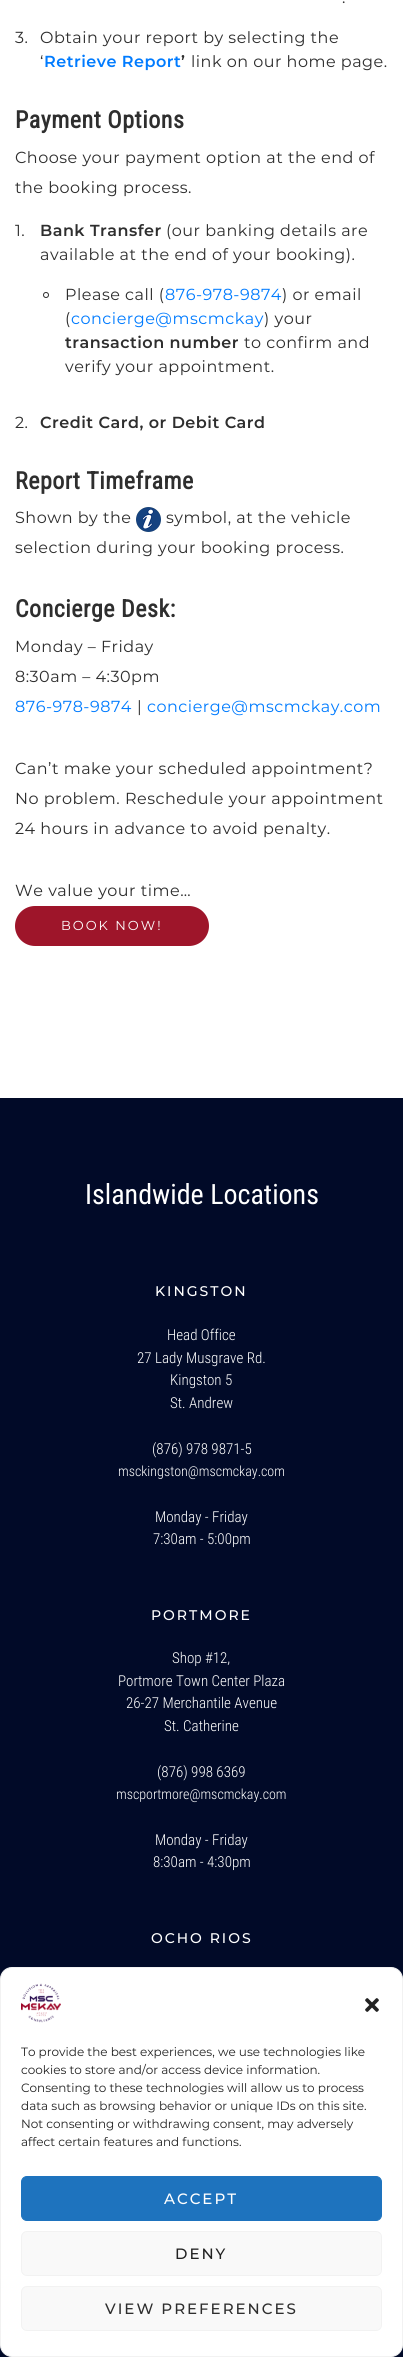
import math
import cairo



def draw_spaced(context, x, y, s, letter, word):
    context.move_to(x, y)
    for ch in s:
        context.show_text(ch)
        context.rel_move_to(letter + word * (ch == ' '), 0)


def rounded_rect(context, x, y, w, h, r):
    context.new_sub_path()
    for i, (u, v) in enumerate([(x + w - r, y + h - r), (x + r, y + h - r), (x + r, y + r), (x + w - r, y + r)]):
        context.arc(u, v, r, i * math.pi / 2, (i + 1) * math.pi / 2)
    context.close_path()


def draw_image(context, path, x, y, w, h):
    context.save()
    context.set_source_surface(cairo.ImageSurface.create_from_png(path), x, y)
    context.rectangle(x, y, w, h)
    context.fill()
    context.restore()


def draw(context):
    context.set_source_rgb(1, 1, 1)
    context.paint()
    context.arc(46, 295, 2.5, 0, 2 * math.pi)
    context.set_source_rgb(46 / 255, 46 / 255, 46 / 255)
    context.set_line_width(1)
    context.stroke()
    draw_image(context, "images/1.png", 136, 507, 25, 25)
    context.set_source_rgb(158 / 255, 21 / 255, 42 / 255)
    rounded_rect(context, 16, 907, 192, 38, 19)
    context.fill_preserve()
    context.set_line_width(2)
    context.stroke()
    context.set_source_rgb(1 / 255, 10 / 255, 40 / 255)
    context.rectangle(0, 1098, 403, 1259)
    context.fill()
    context.set_source_rgb(1, 1, 1)
    rounded_rect(context, 0.5, 1967.5, 402, 389, 11.5)
    context.fill_preserve()
    context.set_source_rgb(242 / 255, 242 / 255, 242 / 255)
    context.set_line_width(1)
    context.stroke()
    draw_image(context, "images/2.png", 21, 1983, 40, 40)
    draw_image(context, "images/3.png", 365, 1998, 14, 14)
    context.set_source_rgb(30 / 255, 115 / 255, 190 / 255)
    rounded_rect(context, 21.5, 2176.5, 360, 44, 5.5)
    context.fill_preserve()
    context.stroke()
    context.set_source_rgb(249 / 255, 249 / 255, 249 / 255)
    rounded_rect(context, 21.5, 2231.5, 360, 44, 5.5)
    context.fill_preserve()
    context.set_source_rgb(242 / 255, 242 / 255, 242 / 255)
    context.stroke()
    context.set_source_rgb(249 / 255, 249 / 255, 249 / 255)
    rounded_rect(context, 21.5, 2286.5, 360, 44, 5.5)
    context.fill_preserve()
    context.set_source_rgb(242 / 255, 242 / 255, 242 / 255)
    context.stroke()
    context.select_font_face("Montserrat")
    context.set_font_size(16)
    context.set_source_rgb(46 / 255, 46 / 255, 46 / 255)
    draw_spaced(context, 342, 3, ".", 0.5, 0)
    draw_spaced(context, 15, 43, "3.", 0.5, 0)
    draw_spaced(context, 40, 43, "Obtain your report by selecting the", 0.5, 0)
    draw_spaced(context, 40, 67, "‘", 0.5, 0)
    context.select_font_face("Montserrat SemiBold")
    context.set_source_rgb(0, 123 / 255, 1)
    draw_spaced(context, 44, 67, "Retrieve Report", 0.5, 0)
    context.set_source_rgb(46 / 255, 46 / 255, 46 / 255)
    draw_spaced(context, 181, 67, "’", 0.5, 0)
    context.select_font_face("Montserrat")
    draw_spaced(context, 191, 67, "link on our home page.", 0.5, 0)
    context.select_font_face("Roboto Condensed", cairo.FontSlant.NORMAL, cairo.FontWeight.BOLD)
    context.set_font_size(24)
    draw_spaced(context, 15, 128, "Payment Options", 0.5, 0)
    context.select_font_face("Montserrat")
    context.set_font_size(16)
    draw_spaced(context, 15, 163, "Choose your payment option at the end of", 0.5, 0)
    draw_spaced(context, 15, 193, "the booking process.", 0.5, 0)
    draw_spaced(context, 15, 236, "1.", 0.5, 0)
    context.select_font_face("Montserrat SemiBold")
    draw_spaced(context, 40, 236, "Bank Transfer", 0.5, 0)
    context.select_font_face("Montserrat")
    draw_spaced(context, 166, 236, "(our banking details are", 0.5, 0)
    draw_spaced(context, 40, 260, "available at the end of your booking).", 0.5, 0)
    draw_spaced(context, 65, 300, "Please call (", 0.5, 0)
    context.set_source_rgb(0, 123 / 255, 1)
    draw_spaced(context, 165, 300, "876-978-9874", 0.5, 0)
    context.set_source_rgb(46 / 255, 46 / 255, 46 / 255)
    draw_spaced(context, 282, 300, ") or email", 0.5, 0)
    draw_spaced(context, 65, 324, "(", 0.5, 0)
    context.set_source_rgb(0, 123 / 255, 1)
    draw_spaced(context, 71, 324, "concierge@mscmckay", 0.5, 0)
    context.set_source_rgb(46 / 255, 46 / 255, 46 / 255)
    draw_spaced(context, 264, 324, ") your", 0.5, 0)
    context.select_font_face("Montserrat SemiBold")
    draw_spaced(context, 65, 348, "transaction number", 0.5, 0)
    context.select_font_face("Montserrat")
    draw_spaced(context, 244, 348, "to confirm and", 0.5, 0)
    draw_spaced(context, 65, 372, "verify your appointment.", 0.5, 0)
    draw_spaced(context, 15, 428, "2.", 0.5, 0)
    context.select_font_face("Montserrat SemiBold")
    draw_spaced(context, 40, 428, "Credit Card, or Debit Card", 0.5, 0)
    context.select_font_face("Roboto Condensed", cairo.FontSlant.NORMAL, cairo.FontWeight.BOLD)
    context.set_font_size(24)
    draw_spaced(context, 15, 489, "Report Timeframe", 0.5, 0)
    context.select_font_face("Montserrat")
    context.set_font_size(16)
    draw_spaced(context, 15, 523, "Shown by the", 0.5, 0)
    draw_spaced(context, 166, 523, "symbol, at the vehicle", 0.5, 0)
    draw_spaced(context, 15, 553, "selection during your booking process.", 0.5, 0)
    context.select_font_face("Roboto Condensed", cairo.FontSlant.NORMAL, cairo.FontWeight.BOLD)
    context.set_font_size(24)
    draw_spaced(context, 15, 617, "Concierge Desk:", 0.5, 0)
    context.select_font_face("Montserrat")
    context.set_font_size(16)
    draw_spaced(context, 15, 652, "Monday – Friday", 0.5, 0)
    draw_spaced(context, 15, 682, "8:30am – 4:30pm", 0.5, 0)
    context.set_source_rgb(0, 123 / 255, 1)
    draw_spaced(context, 15, 712, "876-978-9874", 0.5, 0)
    context.set_source_rgb(46 / 255, 46 / 255, 46 / 255)
    draw_spaced(context, 137, 712, "|", 0.5, 0)
    context.set_source_rgb(0, 123 / 255, 1)
    draw_spaced(context, 147, 712, "concierge@mscmckay.com", 0.5, 0)
    context.set_source_rgb(46 / 255, 46 / 255, 46 / 255)
    draw_spaced(context, 15, 774, "Can’t make your scheduled appointment?", 0.5, 0)
    draw_spaced(context, 15, 804, "No problem. Reschedule your appointment", 0.5, 0)
    draw_spaced(context, 15, 834, "24 hours in advance to avoid penalty.", 0.5, 0)
    draw_spaced(context, 15, 896, "We value your time…", 0.5, 0)
    context.set_font_size(13)
    context.set_source_rgb(1, 1, 1)
    draw_spaced(context, 61, 930, "BOOK NOW!", 2, 0)
    context.select_font_face("Roboto Condensed")
    context.set_font_size(28)
    context.move_to(85, 1204)
    context.show_text("Islandwide Locations")
    context.select_font_face("Montserrat Medium")
    context.set_font_size(14)
    draw_spaced(context, 155, 1296, "KINGSTON", 2, 0)
    context.select_font_face("Roboto Condensed Light")
    context.set_font_size(15)
    context.move_to(167, 1340)
    context.show_text("Head Office")
    context.move_to(137, 1363)
    context.show_text("27 Lady Musgrave Rd.")
    context.move_to(170, 1385)
    context.show_text("Kingston 5")
    context.move_to(170, 1408)
    context.show_text("St. Andrew")
    context.move_to(152, 1454)
    context.show_text("(876) 978 9871-5")
    context.set_font_size(14)
    context.move_to(118, 1476)
    context.show_text("msckingston@mscmckay.com")
    context.set_font_size(15)
    context.move_to(155, 1522)
    context.show_text("Monday - Friday")
    context.move_to(153, 1544)
    context.show_text("7:30am - 5:00pm")
    context.select_font_face("Montserrat Medium")
    context.set_font_size(14)
    draw_spaced(context, 151, 1620, "PORTMORE", 2, 0)
    context.select_font_face("Roboto Condensed Light")
    context.set_font_size(15)
    context.move_to(172, 1663)
    context.show_text("Shop #12,")
    context.move_to(118, 1686)
    context.show_text("Portmore Town Center Plaza")
    context.move_to(126, 1708)
    context.show_text("26-27 Merchantile Avenue")
    context.move_to(164, 1731)
    context.show_text("St. Catherine")
    context.move_to(157, 1777)
    context.show_text("(876) 998 6369")
    context.set_font_size(14)
    context.move_to(116, 1799)
    context.show_text("mscportmore@mscmckay.com")
    context.set_font_size(15)
    context.move_to(155, 1845)
    context.show_text("Monday - Friday")
    context.move_to(153, 1867)
    context.show_text("8:30am - 4:30pm")
    context.select_font_face("Montserrat Medium")
    context.set_font_size(14)
    draw_spaced(context, 151, 1943, "OCHO RIOS", 2, 0)
    context.select_font_face("Montserrat")
    context.set_font_size(12)
    context.set_source_rgb(34 / 255, 34 / 255, 34 / 255)
    context.move_to(21, 2056)
    context.show_text("To provide the best experiences, we use technologies like")
    context.move_to(21, 2074)
    context.show_text("cookies to store and/or access device information.")
    context.move_to(21, 2092)
    context.show_text("Consenting to these technologies will allow us to process")
    context.move_to(21, 2110)
    context.show_text("data such as browsing behavior or unique IDs on this site.")
    context.move_to(21, 2128)
    context.show_text("Not consenting or withdrawing consent, may adversely")
    context.move_to(21, 2146)
    context.show_text("affect certain features and functions.")
    context.select_font_face("Montserrat Medium")
    context.set_font_size(15)
    context.set_source_rgb(1, 1, 1)
    draw_spaced(context, 164, 2204, "ACCEPT", 2, 0)
    context.set_source_rgb(34 / 255, 34 / 255, 34 / 255)
    draw_spaced(context, 175, 2259, "DENY", 2, 0)
    context.set_source_rgb(46 / 255, 46 / 255, 46 / 255)
    draw_spaced(context, 105, 2314, "VIEW PREFERENCES", 2, 0)


surface = cairo.ImageSurface(cairo.Format.RGB24, 403, 2357)
context = cairo.Context(surface)
options = cairo.FontOptions()
options.set_hint_metrics(cairo.HintMetrics.OFF)
options.set_hint_style(cairo.HintStyle.NONE)
context.set_font_options(options)
context.set_miter_limit(4)
draw(context)
surface.write_to_png("out.png")
